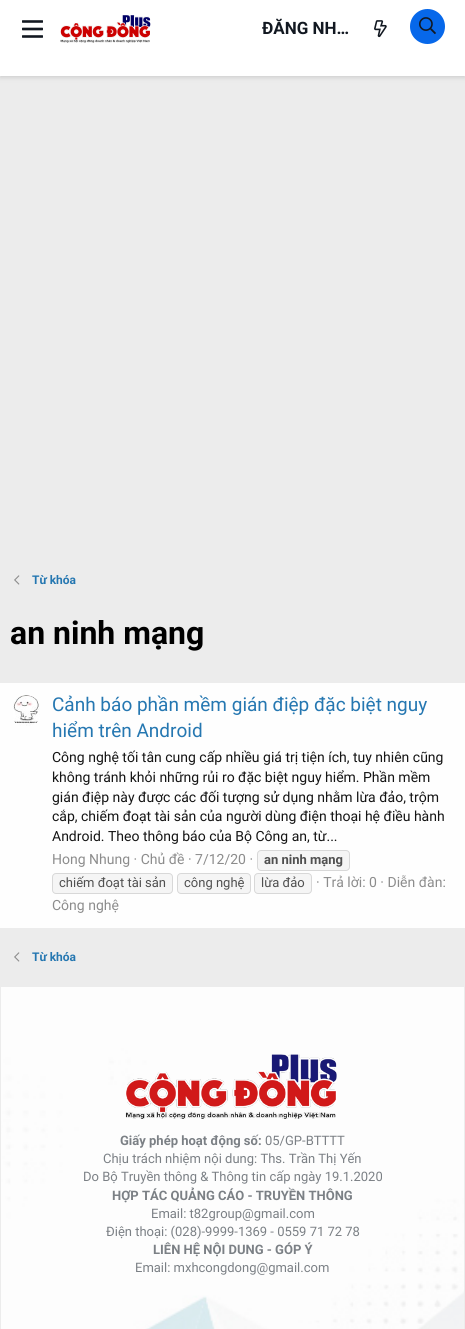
import math
import cairo



def rounded_rect(context, x, y, w, h, r):
    context.new_sub_path()
    for i, (u, v) in enumerate([(x + w - r, y + h - r), (x + r, y + h - r), (x + r, y + r), (x + w - r, y + r)]):
        context.arc(u, v, r, i * math.pi / 2, (i + 1) * math.pi / 2)
    context.close_path()


def draw_shadow(context, x, y, w, h, r, blur, alpha):
    context.push_group_with_content(cairo.Content.ALPHA)
    context.set_operator(cairo.Operator.SOURCE)
    for i in range(15, -16, -2):
        e = blur * i / 6
        if min(w, h) + 2 * e > 0:
            context.set_source_rgba(0, 0, 0, alpha * math.erfc((i - 1) / 8.5) / 2)
            rounded_rect(context, x - e, y - e, w + 2 * e, h + 2 * e, max(0, min(r + e + blur * .6, min(w, h) / 2 + e)))
            context.fill()
    context.mask(context.pop_group())


def draw_image(context, path, x, y, w, h):
    context.save()
    context.set_source_surface(cairo.ImageSurface.create_from_png(path), x, y)
    context.rectangle(x, y, w, h)
    context.fill()
    context.restore()


def draw(context):
    context.set_source_rgb(236 / 255, 236 / 255, 236 / 255)
    context.paint()
    context.set_source_rgb(182 / 255, 182 / 255, 182 / 255)
    draw_shadow(context, 0, 2, 465, 76, 0, 2, 0.5)
    context.set_source_rgb(1, 1, 1)
    context.rectangle(0, 0, 465, 76)
    context.fill()
    draw_image(context, "images/1.png", 22, 20, 21, 18)
    draw_image(context, "images/2.png", 60, 15, 91, 28)
    draw_image(context, "images/3.png", 374, 20, 13, 18)
    context.set_source_rgb(7 / 255, 104 / 255, 234 / 255)
    context.arc(427.5, 26.5, 17.5, 0, 2 * math.pi)
    context.fill()
    draw_image(context, "images/4.png", 419, 17, 17, 18)
    draw_image(context, "images/5.png", 14, 575, 6, 10)
    context.set_source_rgb(254 / 255, 254 / 255, 254 / 255)
    context.rectangle(0, 683, 465, 245)
    context.fill()
    draw_image(context, "images/6.png", 13, 695, 27, 31)
    context.set_source_rgb(245 / 255, 245 / 255, 245 / 255)
    rounded_rect(context, 257.5, 850.5, 92, 20, 3.5)
    context.fill_preserve()
    context.set_source_rgb(216 / 255, 216 / 255, 216 / 255)
    context.set_line_width(1)
    context.stroke()
    context.set_source_rgb(245 / 255, 245 / 255, 245 / 255)
    rounded_rect(context, 52.5, 873.5, 120, 20, 3.5)
    context.fill_preserve()
    context.set_source_rgb(216 / 255, 216 / 255, 216 / 255)
    context.stroke()
    context.set_source_rgb(245 / 255, 245 / 255, 245 / 255)
    rounded_rect(context, 177.5, 873.5, 73, 20, 3.5)
    context.fill_preserve()
    context.set_source_rgb(216 / 255, 216 / 255, 216 / 255)
    context.stroke()
    context.set_source_rgb(245 / 255, 245 / 255, 245 / 255)
    rounded_rect(context, 254.5, 873.5, 57, 20, 3.5)
    context.fill_preserve()
    context.set_source_rgb(216 / 255, 216 / 255, 216 / 255)
    context.stroke()
    draw_image(context, "images/5.png", 14, 952, 6, 10)
    draw_image(context, "images/7.png", 1, 987, 463, 342)
    draw_image(context, "images/8.png", 125, 1054, 212, 65)
    context.select_font_face("Roboto", cairo.FontSlant.NORMAL, cairo.FontWeight.BOLD)
    context.set_font_size(17)
    context.set_source_rgb(18 / 255, 24 / 255, 33 / 255)
    context.move_to(262, 34)
    context.show_text("ĐĂNG NH…")
    context.set_font_size(12)
    context.set_source_rgb(37 / 255, 119 / 255, 177 / 255)
    context.move_to(32, 584)
    context.show_text("Từ khóa")
    context.set_font_size(32)
    context.set_source_rgb(0, 0, 0)
    context.move_to(10, 644)
    context.show_text("an ninh mạng")
    context.select_font_face("Roboto")
    context.set_font_size(19)
    context.set_source_rgb(37 / 255, 119 / 255, 177 / 255)
    context.move_to(52, 711)
    context.show_text("Cảnh báo phần mềm gián điệp đặc biệt nguy")
    context.move_to(52, 737)
    context.show_text("hiểm trên Android")
    context.set_font_size(14)
    context.set_source_rgb(20 / 255, 20 / 255, 20 / 255)
    context.move_to(52, 762)
    context.show_text("Công nghệ tối tân cung cấp nhiều giá trị tiện ích, tuy nhiên cũng")
    context.move_to(52, 782)
    context.show_text("không tránh khỏi những rủi ro đặc biệt nguy hiểm. Phần mềm")
    context.move_to(52, 802)
    context.show_text("gián điệp này được các đối tượng sử dụng nhằm lừa đảo, trộm")
    context.move_to(52, 821)
    context.show_text("cắp, chiếm đoạt tài sản của người dùng điện thoại hệ điều hành")
    context.move_to(52, 841)
    context.show_text("Android. Theo thông báo của Bộ Công an, từ...")
    context.set_source_rgb(140 / 255, 140 / 255, 140 / 255)
    context.move_to(52, 864)
    context.show_text("Hong Nhung · Chủ đề · 7/12/20 ·")
    context.select_font_face("Roboto", cairo.FontSlant.NORMAL, cairo.FontWeight.BOLD)
    context.set_font_size(13)
    context.set_source_rgb(80 / 255, 80 / 255, 80 / 255)
    context.move_to(264, 864)
    context.show_text("an ninh mạng")
    context.select_font_face("Roboto")
    context.move_to(59, 887)
    context.show_text("chiếm đoạt tài sản")
    context.move_to(184, 887)
    context.show_text("công nghệ")
    context.move_to(261, 887)
    context.show_text("lừa đảo")
    context.set_font_size(14)
    context.set_source_rgb(140 / 255, 140 / 255, 140 / 255)
    context.move_to(316, 887)
    context.show_text("· Trả lời: 0 · Diễn đàn:")
    context.move_to(52, 910)
    context.show_text("Công nghệ")
    context.select_font_face("Roboto", cairo.FontSlant.NORMAL, cairo.FontWeight.BOLD)
    context.set_font_size(12)
    context.set_source_rgb(37 / 255, 119 / 255, 177 / 255)
    context.move_to(32, 961)
    context.show_text("Từ khóa")
    context.set_font_size(13)
    context.set_source_rgb(123 / 255, 128 / 255, 133 / 255)
    context.move_to(120, 1145)
    context.show_text("Giấy phép hoạt động số:")
    context.select_font_face("Roboto")
    context.move_to(265, 1145)
    context.show_text("05/GP-BTTTT")
    context.move_to(103, 1163)
    context.show_text("Chịu trách nhiệm nội dung: Ths. Trần Thị Yến")
    context.move_to(83, 1181)
    context.show_text("Do Bộ Truyền thông & Thông tin cấp ngày 19.1.2020")
    context.select_font_face("Roboto", cairo.FontSlant.NORMAL, cairo.FontWeight.BOLD)
    context.move_to(112, 1200)
    context.show_text("HỢP TÁC QUẢNG CÁO - TRUYỀN THÔNG")
    context.select_font_face("Roboto")
    context.move_to(151, 1218)
    context.show_text("Email: t82group@gmail.com")
    context.move_to(106, 1236)
    context.show_text("Điện thoại: (028)-9999-1369 - 0559 71 72 78")
    context.select_font_face("Roboto", cairo.FontSlant.NORMAL, cairo.FontWeight.BOLD)
    context.move_to(153, 1254)
    context.show_text("LIÊN HỆ NỘI DUNG - GÓP Ý")
    context.select_font_face("Roboto")
    context.move_to(135, 1272)
    context.show_text("Email: mxhcongdong@gmail.com")


surface = cairo.ImageSurface(cairo.Format.RGB24, 465, 1329)
context = cairo.Context(surface)
options = cairo.FontOptions()
options.set_hint_metrics(cairo.HintMetrics.OFF)
options.set_hint_style(cairo.HintStyle.NONE)
context.set_font_options(options)
context.set_miter_limit(4)
draw(context)
surface.write_to_png("out.png")
